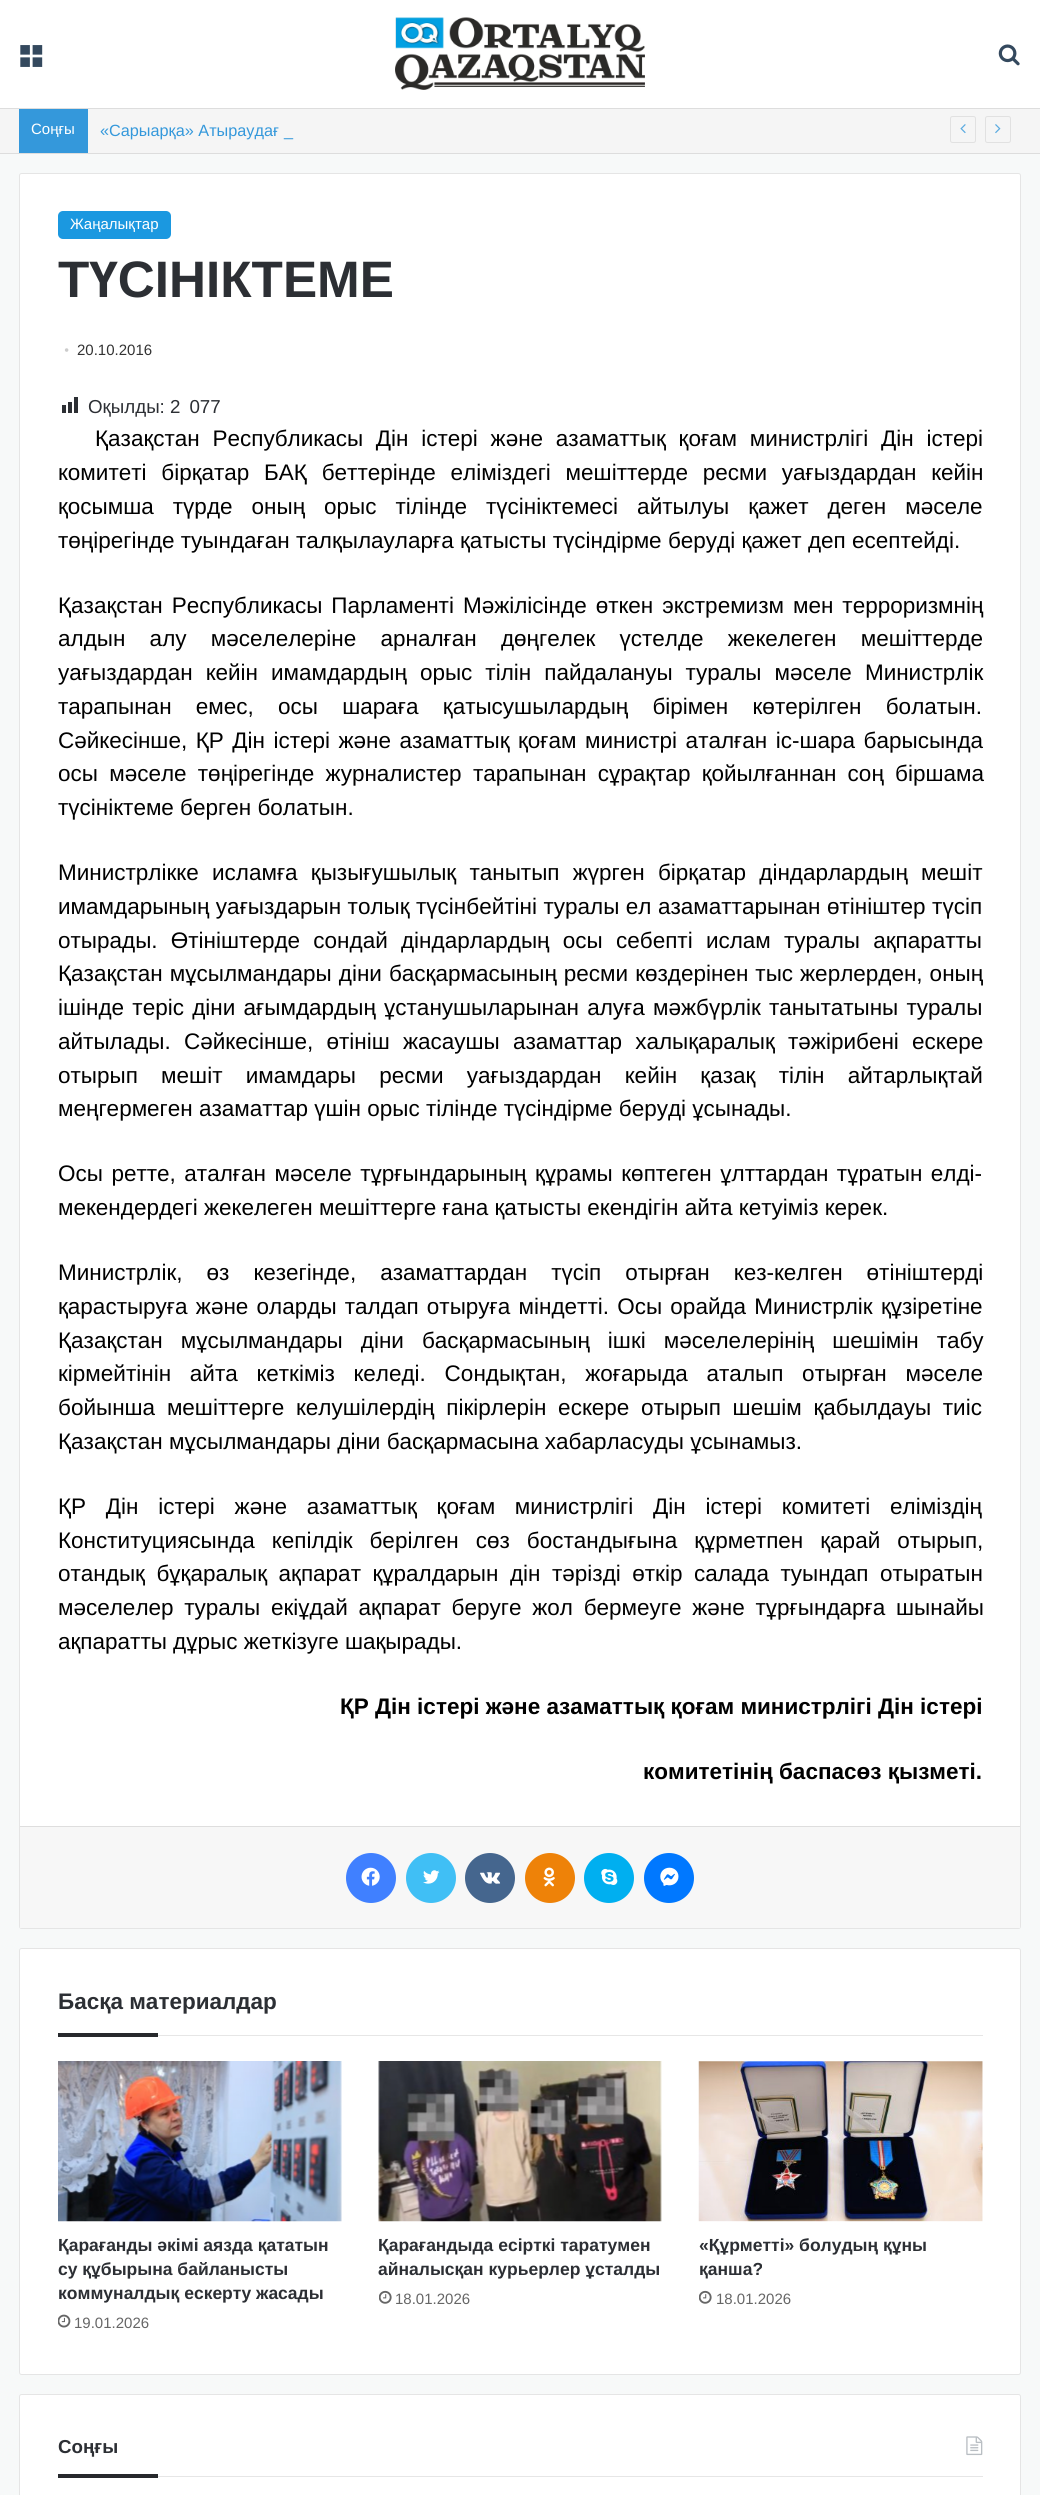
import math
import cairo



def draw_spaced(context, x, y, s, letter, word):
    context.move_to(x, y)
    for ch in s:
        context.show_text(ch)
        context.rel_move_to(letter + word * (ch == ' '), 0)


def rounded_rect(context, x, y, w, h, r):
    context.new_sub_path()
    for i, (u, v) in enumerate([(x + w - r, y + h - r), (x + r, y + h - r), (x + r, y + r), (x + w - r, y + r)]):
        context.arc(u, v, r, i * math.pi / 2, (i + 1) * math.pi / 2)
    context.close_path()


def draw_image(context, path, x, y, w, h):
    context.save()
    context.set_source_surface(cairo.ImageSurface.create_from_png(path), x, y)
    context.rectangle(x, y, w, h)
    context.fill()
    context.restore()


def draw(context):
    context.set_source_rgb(247 / 255, 249 / 255, 249 / 255)
    context.paint()
    context.set_source_rgb(1, 1, 1)
    context.rectangle(0, 0, 1040, 108)
    context.fill()
    draw_image(context, "images/1.png", 20, 45, 23, 22)
    draw_image(context, "images/2.png", 395, 17, 250, 73)
    draw_image(context, "images/3.png", 998, 44, 22, 22)
    context.set_source_rgb(245 / 255, 245 / 255, 245 / 255)
    context.rectangle(0, 109, 1040, 44)
    context.fill()
    context.set_source_rgb(221 / 255, 221 / 255, 221 / 255)
    context.rectangle(0, 108, 1040, 1)
    context.fill()
    context.rectangle(0, 153, 1040, 1)
    context.fill()
    context.set_source_rgb(52 / 255, 152 / 255, 219 / 255)
    context.rectangle(19, 109, 69, 44)
    context.fill()
    rounded_rect(context, 950.5, 116.5, 25, 26, 2)
    context.set_source_rgb(225 / 255, 225 / 255, 225 / 255)
    context.set_line_width(1)
    context.stroke()
    draw_image(context, "images/4.png", 960, 124, 6, 10)
    rounded_rect(context, 985.5, 116.5, 25, 26, 2)
    context.stroke()
    draw_image(context, "images/5.png", 995, 124, 6, 10)
    context.set_source_rgb(1, 1, 1)
    rounded_rect(context, 19.5, 173.5, 1001, 1755, 2)
    context.fill_preserve()
    context.set_source_rgb(229 / 255, 229 / 255, 229 / 255)
    context.stroke()
    context.set_source_rgb(27 / 255, 152 / 255, 224 / 255)
    rounded_rect(context, 58, 211, 113, 28, 5)
    context.fill()
    draw_image(context, "images/6.png", 62, 397, 16, 16)
    context.set_source_rgb(247 / 255, 247 / 255, 247 / 255)
    context.rectangle(20, 1827, 1000, 101)
    context.fill()
    context.set_source_rgb(222 / 255, 222 / 255, 222 / 255)
    context.rectangle(20, 1826, 1000, 1)
    context.fill()
    context.set_source_rgb(64 / 255, 128 / 255, 1)
    context.arc(371, 1878, 25, 0, 2 * math.pi)
    context.fill()
    draw_image(context, "images/7.png", 361, 1867, 19, 19)
    context.set_source_rgb(64 / 255, 191 / 255, 245 / 255)
    context.arc(431, 1878, 25, 0, 2 * math.pi)
    context.fill()
    draw_image(context, "images/8.png", 423, 1870, 17, 14)
    context.set_source_rgb(69 / 255, 102 / 255, 142 / 255)
    context.arc(490, 1878, 25, 0, 2 * math.pi)
    context.fill()
    draw_image(context, "images/9.png", 480, 1872, 21, 12)
    context.set_source_rgb(238 / 255, 130 / 255, 8 / 255)
    context.arc(550, 1878, 25, 0, 2 * math.pi)
    context.fill()
    draw_image(context, "images/10.png", 543, 1867, 12, 20)
    context.set_source_rgb(0, 175 / 255, 240 / 255)
    context.arc(609, 1878, 25, 0, 2 * math.pi)
    context.fill()
    draw_image(context, "images/11.png", 601, 1868, 17, 17)
    context.set_source_rgb(0, 120 / 255, 1)
    context.arc(669, 1878, 25, 0, 2 * math.pi)
    context.fill()
    draw_image(context, "images/12.png", 660, 1867, 19, 19)
    context.set_source_rgb(1, 1, 1)
    rounded_rect(context, 19.5, 1948.5, 1001, 426, 2)
    context.fill_preserve()
    context.set_source_rgb(229 / 255, 229 / 255, 229 / 255)
    context.stroke()
    context.set_source_rgb(230 / 255, 230 / 255, 230 / 255)
    context.rectangle(158, 2035, 825, 1)
    context.fill()
    context.set_source_rgb(39 / 255, 41 / 255, 45 / 255)
    context.rectangle(58, 2033, 100, 4)
    context.fill()
    draw_image(context, "images/13.png", 58, 2061, 284, 161)
    draw_image(context, "images/14.png", 58, 2314, 13, 14)
    draw_image(context, "images/15.png", 378, 2061, 284, 161)
    draw_image(context, "images/16.png", 379, 2290, 13, 14)
    draw_image(context, "images/17.png", 698, 2061, 285, 161)
    draw_image(context, "images/16.png", 699, 2290, 13, 14)
    context.set_source_rgb(1, 1, 1)
    rounded_rect(context, 19.5, 2394.5, 1001, 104, 2)
    context.fill_preserve()
    context.set_source_rgb(229 / 255, 229 / 255, 229 / 255)
    context.stroke()
    context.set_source_rgb(230 / 255, 230 / 255, 230 / 255)
    context.rectangle(158, 2476, 825, 1)
    context.fill()
    draw_image(context, "images/18.png", 966, 2436, 17, 20)
    context.set_source_rgb(39 / 255, 41 / 255, 45 / 255)
    context.rectangle(58, 2474, 100, 4)
    context.fill()
    context.select_font_face("Liberation Sans")
    context.set_font_size(15)
    context.set_source_rgb(1, 1, 1)
    context.move_to(31, 134)
    context.show_text("Соңғы")
    context.set_font_size(16.25)
    context.set_source_rgb(52 / 255, 152 / 255, 219 / 255)
    context.move_to(100, 136)
    context.show_text("«Сарыарқа» Атыраудағ")
    context.move_to(284, 136)
    context.show_text("_")
    context.set_font_size(15)
    context.set_source_rgb(1, 1, 1)
    context.move_to(70, 229)
    context.show_text("Жаңалықтар")
    context.select_font_face("Liberation Sans", cairo.FontSlant.NORMAL, cairo.FontWeight.BOLD)
    context.set_font_size(51.25)
    context.set_source_rgb(44 / 255, 47 / 255, 52 / 255)
    context.move_to(58, 297)
    context.show_text("ТҮСІНІКТЕМЕ")
    context.select_font_face("Liberation Serif")
    context.set_font_size(15)
    context.set_source_rgb(204 / 255, 204 / 255, 204 / 255)
    context.move_to(64, 355)
    context.show_text("•")
    context.select_font_face("Liberation Sans")
    context.set_source_rgb(51 / 255, 51 / 255, 51 / 255)
    context.move_to(77, 355)
    context.show_text("20.10.2016")
    context.set_font_size(18.75)
    context.set_source_rgb(44 / 255, 47 / 255, 52 / 255)
    context.move_to(88, 413)
    context.show_text("Оқылды: 2  077")
    context.set_font_size(22.5)
    context.set_source_rgb(0, 0, 0)
    draw_spaced(context, 95, 446, "Қазақстан Республикасы Дін істері және азаматтық қоғам министрлігі Дін істері", 0, 6.5)
    draw_spaced(context, 58, 480, "комитеті бірқатар БАҚ беттерінде еліміздегі мешіттерде ресми уағыздардан кейін", 0, 8.5)
    draw_spaced(context, 58, 514, "қосымша түрде оның орыс тілінде түсініктемесі айтылуы қажет деген мәселе", 0, 12.75)
    context.move_to(58, 548)
    context.show_text("төңірегінде туындаған талқылауларға қатысты түсіндірме беруді қажет деп есептейді.")
    draw_spaced(context, 58, 613, "Қазақстан Республикасы Парламенті Мәжілісінде өткен экстремизм мен терроризмнің", 0, 2.75)
    draw_spaced(context, 58, 646, "алдын алу мәселелеріне арналған дөңгелек үстелде жекелеген мешіттерде", 0, 18)
    draw_spaced(context, 58, 680, "уағыздардан кейін имамдардың орыс тілін пайдалануы туралы мәселе Министрлік", 0, 6.75)
    draw_spaced(context, 58, 714, "тарапынан емес, осы шараға қатысушылардың бірімен көтерілген болатын.", 0, 18)
    draw_spaced(context, 58, 748, "Сәйкесінше, ҚР Дін істері және азаматтық қоғам министрі аталған іс-шара барысында", 0, 2.25)
    draw_spaced(context, 58, 781, "осы мәселе төңірегінде журналистер тарапынан сұрақтар қойылғаннан соң біршама", 0, 5)
    context.move_to(58, 815)
    context.show_text("түсініктеме берген болатын.")
    draw_spaced(context, 58, 880, "Министрлікке исламға қызығушылық танытып жүрген бірқатар діндарлардың мешіт", 0, 7)
    draw_spaced(context, 58, 914, "имамдарының уағыздарын толық түсінбейтіні туралы ел азаматтарынан өтініштер түсіп", 0, 0.25)
    draw_spaced(context, 58, 948, "отырады. Өтініштерде сондай діндарлардың осы себепті ислам туралы ақпаратты", 0, 7)
    draw_spaced(context, 58, 981, "Қазақстан мұсылмандары діни басқармасының ресми көздерінен тыс жерлерден, оның", 0, 0.75)
    draw_spaced(context, 58, 1015, "ішінде теріс діни ағымдардың ұстанушыларынан алуға мәжбүрлік танытатыны туралы", 0, 2)
    draw_spaced(context, 58, 1049, "айтылады. Сәйкесінше, өтініш жасаушы азаматтар халықаралық тәжірибені ескере", 0, 7)
    draw_spaced(context, 58, 1083, "отырып мешіт имамдары ресми уағыздардан кейін қазақ тілін айтарлықтай", 0, 17)
    context.move_to(58, 1116)
    context.show_text("меңгермеген азаматтар үшін орыс тілінде түсіндірме беруді ұсынады.")
    draw_spaced(context, 58, 1181, "Осы ретте, аталған мәселе тұрғындарының құрамы көптеген ұлттардан тұратын елді-", 0, 2.25)
    context.move_to(58, 1215)
    context.show_text("мекендердегі жекелеген мешіттерге ғана қатысты екендігін айта кетуіміз керек.")
    draw_spaced(context, 58, 1280, "Министрлік, өз кезегінде, азаматтардан түсіп отырған кез-келген өтініштерді", 0, 17.75)
    draw_spaced(context, 58, 1314, "қарастыруға және оларды талдап отыруға міндетті. Осы орайда Министрлік құзіретіне", 0, 2)
    draw_spaced(context, 58, 1348, "Қазақстан мұсылмандары діни басқармасының ішкі мәселелерінің шешімін табу", 0, 11.75)
    draw_spaced(context, 58, 1381, "кірмейтінін айта кеткіміз келеді. Сондықтан, жоғарыда аталып отырған мәселе", 0, 12.5)
    draw_spaced(context, 58, 1415, "бойынша мешіттерге келушілердің пікірлерін ескере отырып шешім қабылдауы тиіс", 0, 5.5)
    context.move_to(58, 1449)
    context.show_text("Қазақстан мұсылмандары діни басқармасына хабарласуды ұсынамыз.")
    draw_spaced(context, 58, 1514, "ҚР Дін істері және азаматтық қоғам министрлігі Дін істері комитеті еліміздің", 0, 13.5)
    draw_spaced(context, 58, 1548, "Конституциясында кепілдік берілген сөз бостандығына құрметпен қарай отырып,", 0, 10.75)
    draw_spaced(context, 58, 1581, "отандық бұқаралық ақпарат құралдарын дін тәрізді өткір салада туындап отыратын", 0, 5.25)
    draw_spaced(context, 58, 1615, "мәселелер туралы екіұдай ақпарат беруге жол бермеуге және тұрғындарға шынайы", 0, 4.5)
    context.move_to(58, 1649)
    context.show_text("ақпаратты дұрыс жеткізуге шақырады.")
    context.select_font_face("Liberation Sans", cairo.FontSlant.NORMAL, cairo.FontWeight.BOLD)
    context.move_to(340, 1714)
    context.show_text("ҚР Дін істері және азаматтық қоғам министрлігі Дін істері")
    context.move_to(643, 1779)
    context.show_text("комитетінің баспасөз қызметі.")
    context.set_source_rgb(44 / 255, 47 / 255, 52 / 255)
    context.move_to(58, 2009)
    context.show_text("Басқа материалдар")
    context.set_font_size(17.5)
    context.move_to(58, 2251)
    context.show_text("Қарағанды әкімі аязда қататын")
    context.move_to(58, 2275)
    context.show_text("су құбырына байланысты")
    context.move_to(58, 2299)
    context.show_text("коммуналдық ескерту жасады")
    context.select_font_face("Liberation Sans")
    context.set_font_size(15)
    context.set_source_rgb(102 / 255, 102 / 255, 102 / 255)
    context.move_to(74, 2328)
    context.show_text("19.01.2026")
    context.select_font_face("Liberation Sans", cairo.FontSlant.NORMAL, cairo.FontWeight.BOLD)
    context.set_font_size(17.5)
    context.set_source_rgb(44 / 255, 47 / 255, 52 / 255)
    context.move_to(378, 2251)
    context.show_text("Қарағандыда есірткі таратумен")
    context.move_to(378, 2275)
    context.show_text("айналысқан курьерлер ұсталды")
    context.select_font_face("Liberation Sans")
    context.set_font_size(15)
    context.set_source_rgb(102 / 255, 102 / 255, 102 / 255)
    context.move_to(395, 2304)
    context.show_text("18.01.2026")
    context.select_font_face("Liberation Sans", cairo.FontSlant.NORMAL, cairo.FontWeight.BOLD)
    context.set_font_size(17.5)
    context.set_source_rgb(44 / 255, 47 / 255, 52 / 255)
    context.move_to(699, 2251)
    context.show_text("«Құрметті» болудың құны")
    context.move_to(699, 2275)
    context.show_text("қанша?")
    context.select_font_face("Liberation Sans")
    context.set_font_size(15)
    context.set_source_rgb(102 / 255, 102 / 255, 102 / 255)
    context.move_to(716, 2304)
    context.show_text("18.01.2026")
    context.select_font_face("Liberation Sans", cairo.FontSlant.NORMAL, cairo.FontWeight.BOLD)
    context.set_font_size(18.75)
    context.set_source_rgb(44 / 255, 47 / 255, 52 / 255)
    context.move_to(58, 2453)
    context.show_text("Соңғы")


surface = cairo.ImageSurface(cairo.Format.RGB24, 1040, 2495)
context = cairo.Context(surface)
options = cairo.FontOptions()
options.set_hint_metrics(cairo.HintMetrics.OFF)
options.set_hint_style(cairo.HintStyle.NONE)
context.set_font_options(options)
context.set_miter_limit(4)
draw(context)
surface.write_to_png("out.png")
